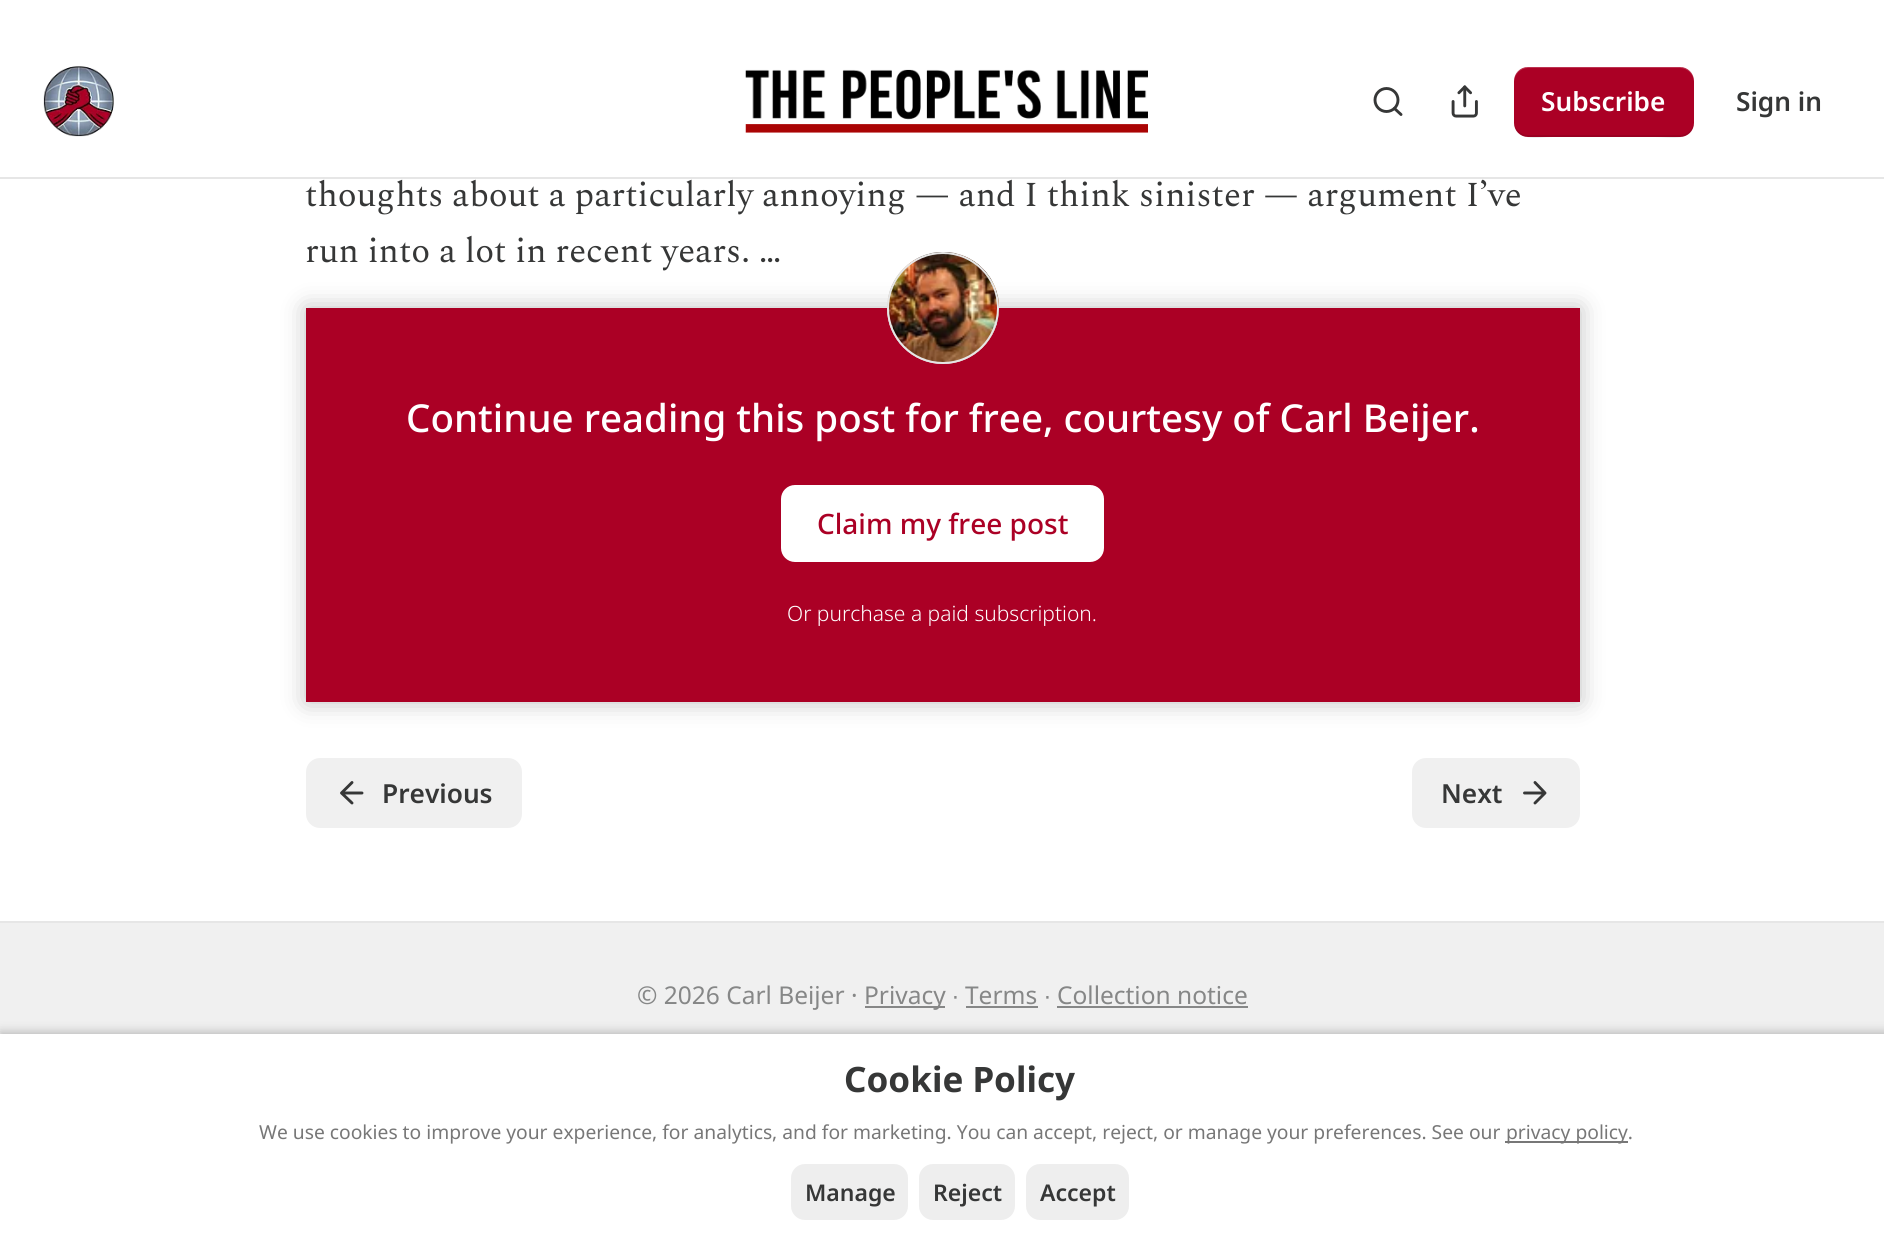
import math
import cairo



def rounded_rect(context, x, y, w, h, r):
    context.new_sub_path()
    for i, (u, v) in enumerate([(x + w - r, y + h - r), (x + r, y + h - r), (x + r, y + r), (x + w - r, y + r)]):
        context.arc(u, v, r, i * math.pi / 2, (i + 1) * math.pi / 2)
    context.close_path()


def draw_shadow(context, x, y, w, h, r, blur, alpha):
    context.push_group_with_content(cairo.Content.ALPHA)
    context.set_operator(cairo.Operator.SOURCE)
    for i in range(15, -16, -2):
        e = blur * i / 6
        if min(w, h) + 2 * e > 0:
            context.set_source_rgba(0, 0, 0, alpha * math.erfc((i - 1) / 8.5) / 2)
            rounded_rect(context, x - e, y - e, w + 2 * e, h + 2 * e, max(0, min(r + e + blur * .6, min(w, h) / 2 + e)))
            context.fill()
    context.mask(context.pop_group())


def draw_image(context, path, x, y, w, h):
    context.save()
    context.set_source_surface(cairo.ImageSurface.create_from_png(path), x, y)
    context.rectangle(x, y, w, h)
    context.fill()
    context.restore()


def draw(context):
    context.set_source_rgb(1, 1, 1)
    context.paint()
    context.set_source_rgb(230 / 255, 230 / 255, 230 / 255)
    context.rectangle(0, 177, 1884, 2)
    context.fill()
    draw_image(context, "images/1.png", 43, 66, 71, 71)
    draw_image(context, "images/2.png", 745, 69, 403, 64)
    context.arc(1386.5, 100, 11.5, 0, 2 * math.pi)
    context.set_source_rgb(54 / 255, 55 / 255, 55 / 255)
    context.set_line_width(2.9)
    context.stroke()
    context.new_path()
    context.move_to(1401, 114.5)
    context.line_to(1394.5, 108.5)
    context.set_line_cap(cairo.LineCap.ROUND)
    context.set_line_join(cairo.LineJoin.ROUND)
    context.stroke()
    draw_image(context, "images/3.png", 1451, 85, 27, 33)
    context.set_source_rgb(171 / 255, 0, 37 / 255)
    rounded_rect(context, 1514, 67, 180, 70, 14)
    context.fill()
    context.set_source_rgba(0, 0, 0, 0.1)
    context.new_path()
    context.move_to(1514, 121)
    context.curve_to(1514, 143, 1538, 137, 1553, 137)
    context.line_to(1655, 137)
    context.curve_to(1670, 137, 1694, 143, 1694, 121)
    context.curve_to(1694, 128, 1688, 135, 1680, 135)
    context.line_to(1528, 135)
    context.curve_to(1520, 135, 1514, 128, 1514, 121)
    context.close_path()
    context.fill()
    context.set_source_rgba(1, 1, 1, 0.2)
    context.new_path()
    context.move_to(1528, 68)
    context.line_to(1680, 68)
    context.curve_to(1688, 68, 1694, 75, 1694, 82)
    context.curve_to(1694, 61, 1667, 67, 1655, 67)
    context.line_to(1553, 67)
    context.curve_to(1541, 67, 1514, 61, 1514, 82)
    context.curve_to(1514, 75, 1520, 68, 1528, 68)
    context.close_path()
    context.fill()
    context.set_source_rgb(171 / 255, 0, 37 / 255)
    context.rectangle(306, 308, 1274, 394)
    context.fill()
    context.set_source_rgb(1, 1, 1)
    rounded_rect(context, 782, 486, 321, 75, 13)
    context.fill_preserve()
    context.set_line_width(2)
    context.set_line_cap(cairo.LineCap.BUTT)
    context.set_line_join(cairo.LineJoin.MITER)
    context.stroke()
    context.save()
    context.set_fill_rule(cairo.FillRule.EVEN_ODD)
    context.new_path()
    context.move_to(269, 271)
    context.line_to(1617, 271)
    context.line_to(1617, 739)
    context.line_to(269, 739)
    context.close_path()
    context.move_to(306, 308)
    context.line_to(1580, 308)
    context.line_to(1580, 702)
    context.line_to(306, 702)
    context.close_path()
    context.clip()
    context.set_source_rgb(0, 0, 0)
    draw_shadow(context, 306, 308, 1274, 394, 0, 12, 0.25)
    context.restore()
    context.arc(943, 308, 55, 0, 2 * math.pi)
    context.set_source_rgb(230 / 255, 230 / 255, 230 / 255)
    context.stroke()
    draw_image(context, "images/4.png", 887, 252, 112, 112)
    context.arc(943, 308, 55, 0, 2 * math.pi)
    context.stroke()
    context.set_source_rgb(240 / 255, 240 / 255, 240 / 255)
    rounded_rect(context, 306, 758, 216, 70, 14)
    context.fill()
    context.new_path()
    context.move_to(352, 803)
    context.line_to(341.5, 793)
    context.line_to(352, 782.5)
    context.move_to(362, 793)
    context.line_to(341.5, 793)
    context.set_source_rgb(54 / 255, 55 / 255, 55 / 255)
    context.set_line_width(2.9)
    context.set_line_cap(cairo.LineCap.ROUND)
    context.set_line_join(cairo.LineJoin.ROUND)
    context.stroke()
    context.set_source_rgb(240 / 255, 240 / 255, 240 / 255)
    rounded_rect(context, 1412, 758, 168, 70, 14)
    context.fill()
    context.new_path()
    context.move_to(1524.5, 793)
    context.line_to(1545, 793)
    context.move_to(1535, 782.5)
    context.line_to(1545, 793)
    context.line_to(1535, 803)
    context.set_source_rgb(54 / 255, 55 / 255, 55 / 255)
    context.stroke()
    context.set_source_rgb(240 / 255, 240 / 255, 240 / 255)
    context.rectangle(0, 923, 1884, 111)
    context.fill()
    context.set_source_rgb(230 / 255, 230 / 255, 230 / 255)
    context.rectangle(0, 921, 1884, 2)
    context.fill()
    context.set_source_rgb(134 / 255, 135 / 255, 135 / 255)
    context.rectangle(865, 1006, 80, 2)
    context.fill()
    context.rectangle(966, 1006, 72, 2)
    context.fill()
    context.rectangle(1057, 1006, 191, 2)
    context.fill()
    context.set_source_rgb(0, 0, 0)
    draw_shadow(context, 0, 1031, 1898, 210, 0, 4.5, 0.2)
    context.set_source_rgb(1, 1, 1)
    context.rectangle(0, 1034, 1884, 209)
    context.fill()
    context.set_source_rgb(119 / 255, 119 / 255, 119 / 255)
    context.rectangle(1505, 1141, 123, 2)
    context.fill()
    context.set_source_rgb(238 / 255, 238 / 255, 238 / 255)
    rounded_rect(context, 791, 1164, 117, 56, 14)
    context.fill()
    rounded_rect(context, 919, 1164, 96, 56, 14)
    context.fill()
    rounded_rect(context, 1026, 1164, 103, 56, 14)
    context.fill()
    context.select_font_face("Noto Sans SemiBold")
    context.set_font_size(26.25)
    context.set_source_rgb(1, 1, 1)
    context.move_to(1541, 111)
    context.show_text("Subscribe")
    context.set_source_rgb(54 / 255, 55 / 255, 55 / 255)
    context.move_to(1736, 111)
    context.show_text("Sign in")
    context.select_font_face("Spectral")
    context.set_font_size(35)
    context.move_to(305, 206)
    context.show_text("thoughts about a particularly annoying — and I think sinister — argument I’ve")
    context.move_to(305, 262)
    context.show_text("run into a lot in recent years. …")
    context.select_font_face("Noto Sans Medium")
    context.set_font_size(38.5)
    context.set_source_rgb(1, 1, 1)
    context.move_to(406, 432)
    context.show_text("Continue reading this post for free, courtesy of Carl Beijer.")
    context.set_font_size(28)
    context.set_source_rgb(171 / 255, 0, 37 / 255)
    context.move_to(817, 534)
    context.show_text("Claim my free post")
    context.select_font_face("Noto Sans Light")
    context.set_font_size(21)
    context.set_source_rgb(1, 1, 1)
    context.move_to(787, 621)
    context.show_text("Or purchase a paid subscription.")
    context.select_font_face("Noto Sans SemiBold")
    context.set_font_size(26.25)
    context.set_source_rgb(54 / 255, 55 / 255, 55 / 255)
    context.move_to(382, 803)
    context.show_text("Previous")
    context.move_to(1441, 803)
    context.show_text("Next")
    context.select_font_face("Noto Sans")
    context.set_font_size(24.5)
    context.set_source_rgb(134 / 255, 135 / 255, 135 / 255)
    context.move_to(637, 1004)
    context.show_text("© 2026 Carl Beijer ·")
    context.move_to(864, 1004)
    context.show_text("Privacy")
    context.select_font_face("Liberation Sans")
    context.move_to(952, 1004)
    context.show_text("∙")
    context.select_font_face("Noto Sans")
    context.move_to(965, 1004)
    context.show_text("Terms")
    context.select_font_face("Liberation Sans")
    context.move_to(1044, 1004)
    context.show_text("∙")
    context.select_font_face("Noto Sans")
    context.move_to(1057, 1004)
    context.show_text("Collection notice")
    context.select_font_face("Noto Sans", cairo.FontSlant.NORMAL, cairo.FontWeight.BOLD)
    context.set_font_size(35)
    context.set_source_rgb(54 / 255, 55 / 255, 55 / 255)
    context.move_to(844, 1092)
    context.show_text("Cookie Policy")
    context.select_font_face("Noto Sans")
    context.set_font_size(19.25)
    context.set_source_rgb(119 / 255, 119 / 255, 119 / 255)
    context.move_to(259, 1139)
    context.show_text("We use cookies to improve your experience, for analytics, and for marketing. You can accept, reject, or manage your preferences. See our")
    context.move_to(1506, 1139)
    context.show_text("privacy policy.")
    context.select_font_face("Noto Sans SemiBold")
    context.set_font_size(23)
    context.set_source_rgb(54 / 255, 55 / 255, 55 / 255)
    context.move_to(805, 1201)
    context.show_text("Manage")
    context.move_to(933, 1201)
    context.show_text("Reject")
    context.move_to(1040, 1201)
    context.show_text("Accept")


surface = cairo.ImageSurface(cairo.Format.RGB24, 1884, 1243)
context = cairo.Context(surface)
options = cairo.FontOptions()
options.set_hint_metrics(cairo.HintMetrics.OFF)
options.set_hint_style(cairo.HintStyle.NONE)
context.set_font_options(options)
context.set_miter_limit(4)
draw(context)
surface.write_to_png("out.png")
